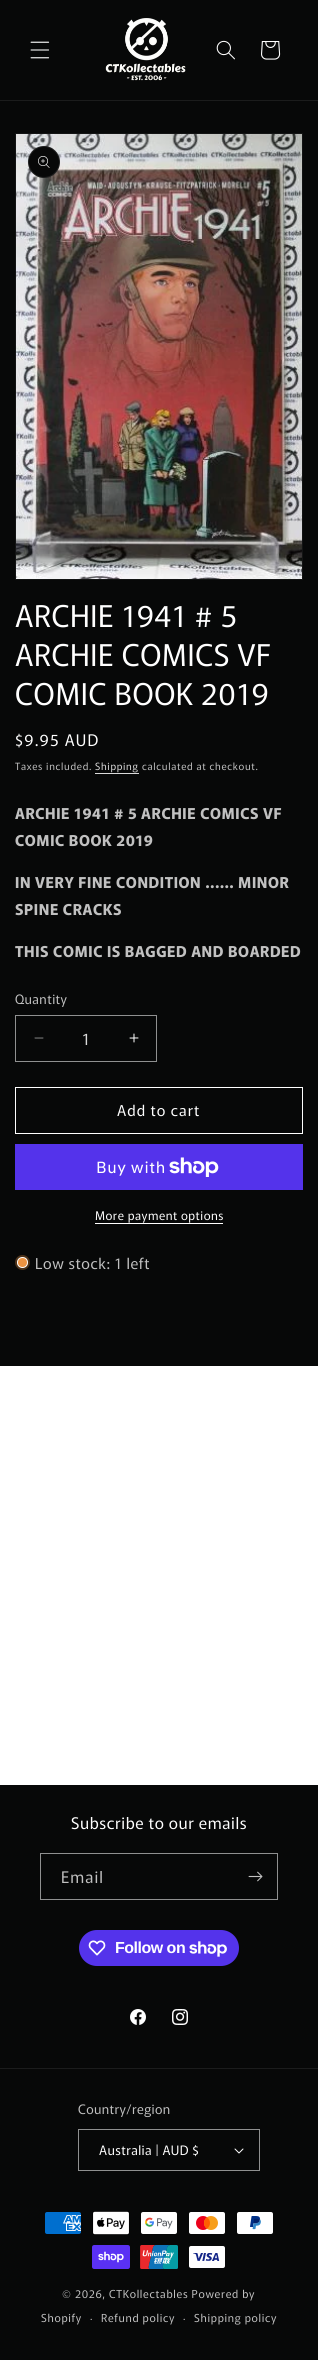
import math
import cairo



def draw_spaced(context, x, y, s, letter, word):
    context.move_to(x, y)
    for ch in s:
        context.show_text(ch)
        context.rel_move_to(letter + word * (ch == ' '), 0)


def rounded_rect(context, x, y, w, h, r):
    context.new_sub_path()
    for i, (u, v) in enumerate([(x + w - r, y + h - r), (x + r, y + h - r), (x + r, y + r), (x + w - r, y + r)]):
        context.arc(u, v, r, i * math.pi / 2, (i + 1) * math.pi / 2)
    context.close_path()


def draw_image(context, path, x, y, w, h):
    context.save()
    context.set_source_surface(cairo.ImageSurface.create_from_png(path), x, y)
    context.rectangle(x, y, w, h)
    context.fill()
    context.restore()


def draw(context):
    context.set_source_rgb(1, 1, 1)
    context.paint()
    context.set_source_rgb(7 / 255, 8 / 255, 8 / 255)
    context.rectangle(0, 0, 318, 100)
    context.fill()
    context.set_source_rgb(27 / 255, 28 / 255, 28 / 255)
    context.rectangle(0, 100, 318, 1)
    context.fill()
    draw_image(context, "images/1.png", 30, 41, 20, 18)
    draw_image(context, "images/2.png", 105, 18, 81, 63)
    draw_image(context, "images/3.png", 216, 40, 19, 20)
    draw_image(context, "images/4.png", 261, 41, 20, 19)
    context.set_source_rgb(7 / 255, 8 / 255, 8 / 255)
    context.rectangle(0, 101, 318, 1265)
    context.fill()
    context.rectangle(15.5, 133.5, 287, 446)
    context.set_source_rgb(19 / 255, 20 / 255, 20 / 255)
    context.set_line_width(1)
    context.stroke()
    draw_image(context, "images/5.png", 16, 134, 286, 445)
    context.set_source_rgb(7 / 255, 8 / 255, 8 / 255)
    context.arc(44, 162, 16, 0, 2 * math.pi)
    context.fill()
    context.arc(44, 162, 15.5, 0, 2 * math.pi)
    context.set_source_rgba(1, 1, 1, 0.1)
    context.stroke()
    draw_image(context, "images/6.png", 38, 156, 12, 12)
    context.set_source_rgb(218 / 255, 218 / 255, 218 / 255)
    context.rectangle(95, 773, 44, 1)
    context.fill()
    draw_image(context, "images/7.png", 34, 1037, 10, 2)
    draw_image(context, "images/8.png", 129, 1033, 10, 10)
    context.rectangle(15.5, 1015.5, 141, 46)
    context.set_source_rgb(143 / 255, 144 / 255, 144 / 255)
    context.stroke()
    context.rectangle(15.5, 1087.5, 287, 46)
    context.set_source_rgb(1, 1, 1)
    context.stroke()
    context.set_source_rgb(84 / 255, 51 / 255, 235 / 255)
    context.rectangle(15, 1144, 288, 46)
    context.fill()
    draw_image(context, "images/9.png", 169, 1157, 50, 20)
    context.set_source_rgb(1, 1, 1)
    context.rectangle(95, 1223, 128, 1)
    context.fill()
    context.set_source_rgb(76 / 255, 50 / 255, 25 / 255)
    context.arc(22.5, 1262.5, 7.5, 0, 2 * math.pi)
    context.fill()
    context.set_source_rgb(238 / 255, 148 / 255, 65 / 255)
    context.arc(22.5, 1262.5, 5, 0, 2 * math.pi)
    context.fill_preserve()
    context.set_source_rgb(1, 1, 1)
    context.stroke()
    context.set_source_rgb(7 / 255, 8 / 255, 8 / 255)
    context.rectangle(0, 1785, 318, 575)
    context.fill()
    context.rectangle(40.5, 1853.5, 237, 46)
    context.set_source_rgb(143 / 255, 144 / 255, 144 / 255)
    context.stroke()
    draw_image(context, "images/10.png", 248, 1871, 15, 11)
    context.set_source_rgb(84 / 255, 51 / 255, 235 / 255)
    rounded_rect(context, 79, 1930, 160, 36, 18)
    context.fill()
    draw_image(context, "images/11.png", 88, 1940, 18, 16)
    draw_image(context, "images/12.png", 189, 1941, 38, 16)
    draw_image(context, "images/13.png", 130, 2009, 16, 16)
    draw_image(context, "images/14.png", 172, 2009, 16, 16)
    context.set_source_rgb(27 / 255, 28 / 255, 28 / 255)
    context.rectangle(0, 2068, 318, 1)
    context.fill()
    draw_image(context, "images/15.png", 234, 2148, 10, 6)
    context.rectangle(78.5, 2129.5, 181, 41)
    context.set_source_rgb(143 / 255, 144 / 255, 144 / 255)
    context.stroke()
    draw_image(context, "images/16.png", 45, 2212, 36, 22)
    draw_image(context, "images/17.png", 92, 2211, 38, 24)
    draw_image(context, "images/18.png", 141, 2212, 36, 22)
    draw_image(context, "images/19.png", 189, 2212, 36, 22)
    draw_image(context, "images/20.png", 237, 2212, 36, 22)
    draw_image(context, "images/21.png", 92, 2245, 38, 24)
    draw_image(context, "images/22.png", 140, 2245, 38, 24)
    draw_image(context, "images/23.png", 189, 2246, 36, 22)
    context.select_font_face("Murecho")
    context.set_font_size(30)
    context.set_source_rgb(1, 1, 1)
    draw_spaced(context, 15, 627, "ARCHIE 1941 # 5", 0.6, 0)
    draw_spaced(context, 15, 666, "ARCHIE COMICS VF", 0.6, 0)
    draw_spaced(context, 15, 705, "COMIC BOOK 2019", 0.6, 0)
    context.set_font_size(16)
    draw_spaced(context, 15, 746, "$9.95 AUD", 1.25, 0)
    context.set_font_size(10)
    context.set_source_rgb(193 / 255, 193 / 255, 193 / 255)
    draw_spaced(context, 15, 770, "Taxes included.", 0.7, 0)
    context.set_source_rgb(218 / 255, 218 / 255, 218 / 255)
    draw_spaced(context, 95, 770, "Shipping", 0.7, 0)
    context.set_source_rgb(193 / 255, 193 / 255, 193 / 255)
    draw_spaced(context, 142, 770, "calculated at checkout.", 0.7, 0)
    context.select_font_face("Murecho", cairo.FontSlant.NORMAL, cairo.FontWeight.BOLD)
    context.set_font_size(15)
    draw_spaced(context, 15, 819, "ARCHIE 1941 # 5 ARCHIE COMICS VF", 0.6, 0)
    draw_spaced(context, 15, 846, "COMIC BOOK 2019", 0.6, 0)
    draw_spaced(context, 15, 888, "IN VERY FINE CONDITION ...... MINOR", 0.6, 0)
    draw_spaced(context, 15, 915, "SPINE CRACKS", 0.6, 0)
    draw_spaced(context, 15, 957, "THIS COMIC IS BAGGED AND BOARDED", 0.6, 0)
    context.select_font_face("Murecho")
    context.set_font_size(13)
    draw_spaced(context, 15, 1004, "Quantity", 0.4, 0)
    context.set_font_size(16)
    context.set_source_rgb(218 / 255, 218 / 255, 218 / 255)
    context.move_to(82, 1045)
    context.show_text("1")
    context.set_font_size(15)
    context.set_source_rgb(1, 1, 1)
    draw_spaced(context, 117, 1116, "Add to cart", 1, 0)
    context.select_font_face("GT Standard")
    context.set_font_size(16)
    draw_spaced(context, 96, 1173, "Buy with", 0.6, 0)
    context.select_font_face("Murecho")
    context.set_font_size(12)
    draw_spaced(context, 95, 1220, "More payment options", 0.5, 0)
    context.set_font_size(15)
    context.set_source_rgb(193 / 255, 193 / 255, 193 / 255)
    draw_spaced(context, 35, 1269, "Low stock: 1 left", 0.6, 0)
    context.set_font_size(16)
    context.set_source_rgb(1, 1, 1)
    draw_spaced(context, 71, 1829, "Subscribe to our emails", 0.6, 0)
    context.set_source_rgb(193 / 255, 193 / 255, 193 / 255)
    draw_spaced(context, 61, 1883, "Email", 1, 0)
    context.select_font_face("Liberation Sans", cairo.FontSlant.NORMAL, cairo.FontWeight.BOLD)
    context.set_source_rgb(1, 1, 1)
    draw_spaced(context, 115, 1953, "Follow on", -0.5, 0)
    context.select_font_face("Murecho")
    context.set_font_size(13)
    context.set_source_rgb(193 / 255, 193 / 255, 193 / 255)
    draw_spaced(context, 78, 2114, "Country/region", 0.4, 0)
    context.set_source_rgb(1, 1, 1)
    draw_spaced(context, 99, 2155, "Australia | AUD $", 0.4, 0)
    context.set_font_size(11)
    context.set_source_rgb(193 / 255, 193 / 255, 193 / 255)
    draw_spaced(context, 62, 2298, "© 2026, CTKollectables Powered by", 0.7, 0)
    draw_spaced(context, 41, 2322, "Shopify", 0.7, 0)
    context.set_font_size(10)
    draw_spaced(context, 90, 2322, "·", 0.7, 0)
    context.set_font_size(11)
    draw_spaced(context, 101, 2322, "Refund policy", 0.7, 0)
    context.set_font_size(10)
    draw_spaced(context, 183, 2322, "·", 0.7, 0)
    context.set_font_size(11)
    draw_spaced(context, 194, 2322, "Shipping policy", 0.7, 0)


surface = cairo.ImageSurface(cairo.Format.RGB24, 318, 2360)
context = cairo.Context(surface)
options = cairo.FontOptions()
options.set_hint_metrics(cairo.HintMetrics.OFF)
options.set_hint_style(cairo.HintStyle.NONE)
context.set_font_options(options)
context.set_miter_limit(4)
draw(context)
surface.write_to_png("out.png")
